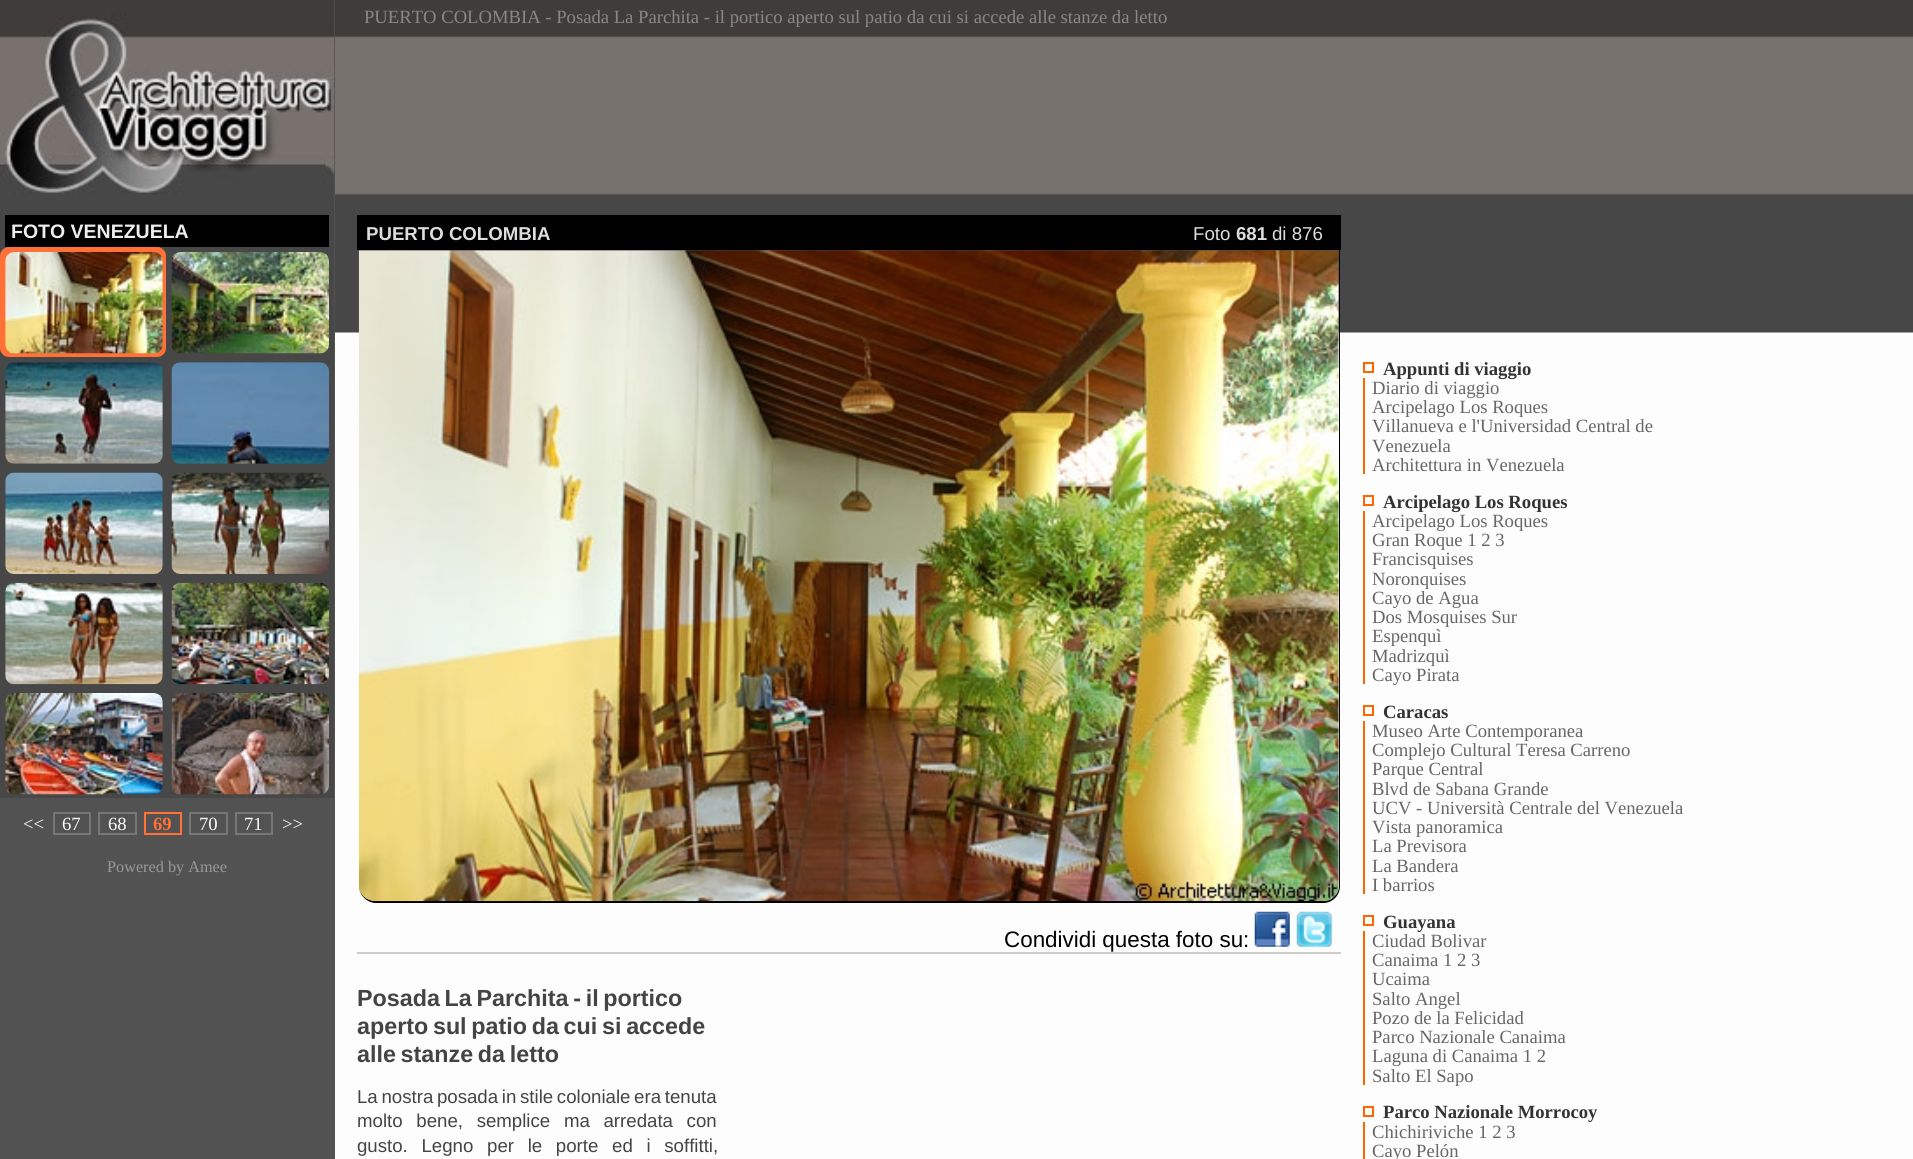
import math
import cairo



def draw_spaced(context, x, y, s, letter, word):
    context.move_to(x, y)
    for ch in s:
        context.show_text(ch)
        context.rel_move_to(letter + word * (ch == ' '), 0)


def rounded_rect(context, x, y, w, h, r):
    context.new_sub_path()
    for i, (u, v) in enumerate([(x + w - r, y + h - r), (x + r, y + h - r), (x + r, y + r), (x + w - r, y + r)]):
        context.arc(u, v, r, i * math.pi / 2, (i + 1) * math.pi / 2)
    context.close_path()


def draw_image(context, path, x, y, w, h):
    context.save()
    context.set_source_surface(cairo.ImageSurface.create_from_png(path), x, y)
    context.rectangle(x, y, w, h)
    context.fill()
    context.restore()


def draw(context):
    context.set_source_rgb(253 / 255, 253 / 255, 253 / 255)
    context.paint()
    draw_image(context, "images/1.png", 335, 0, 1578, 333)
    context.set_source_rgb(82 / 255, 82 / 255, 82 / 255)
    context.rectangle(0, 0, 335, 1159)
    context.fill()
    context.set_source_rgb(71 / 255, 71 / 255, 71 / 255)
    context.rectangle(0, 194, 334, 604)
    context.fill()
    draw_image(context, "images/2.png", 0, 0, 335, 194)
    context.set_source_rgb(0, 0, 0)
    context.rectangle(5, 215, 324, 32)
    context.fill()
    context.set_source_rgb(1, 113 / 255, 54 / 255)
    rounded_rect(context, 0, 247, 166, 110, 9)
    context.fill()
    draw_image(context, "images/3.png", 5, 252, 158, 102)
    draw_image(context, "images/4.png", 171, 252, 158, 102)
    draw_image(context, "images/5.png", 5, 362, 158, 102)
    draw_image(context, "images/6.png", 171, 362, 158, 102)
    draw_image(context, "images/7.png", 5, 472, 158, 102)
    draw_image(context, "images/8.png", 171, 472, 158, 102)
    draw_image(context, "images/9.png", 5, 582, 158, 103)
    draw_image(context, "images/10.png", 171, 582, 158, 103)
    draw_image(context, "images/11.png", 5, 693, 158, 102)
    draw_image(context, "images/12.png", 171, 693, 158, 102)
    context.rectangle(54, 813, 36, 21)
    context.set_source_rgb(119 / 255, 119 / 255, 119 / 255)
    context.stroke()
    context.rectangle(99, 813, 37, 21)
    context.stroke()
    context.rectangle(145, 813, 36, 21)
    context.set_source_rgb(1, 113 / 255, 54 / 255)
    context.stroke()
    context.rectangle(190, 813, 37, 21)
    context.set_source_rgb(119 / 255, 119 / 255, 119 / 255)
    context.stroke()
    context.rectangle(236, 813, 36, 21)
    context.stroke()
    context.set_source_rgb(0, 0, 0)
    context.rectangle(357, 215, 984, 35)
    context.fill()
    context.set_fill_rule(cairo.FillRule.EVEN_ODD)
    context.new_path()
    context.move_to(359, 250)
    context.line_to(1340, 250)
    context.line_to(1340, 886)
    context.curve_to(1340, 895, 1333, 903, 1323, 903)
    context.line_to(376, 903)
    context.curve_to(367, 903, 359, 895, 359, 886)
    context.close_path()
    context.move_to(359, 250)
    context.line_to(1339, 250)
    context.line_to(1339, 886)
    context.curve_to(1339, 894, 1332, 901, 1323, 901)
    context.line_to(376, 901)
    context.curve_to(367, 901, 359, 894, 359, 886)
    context.close_path()
    context.fill()
    draw_image(context, "images/13.png", 358, 250, 981, 652)
    context.set_source_rgb(204 / 255, 204 / 255, 204 / 255)
    context.rectangle(357, 952, 984, 2)
    context.fill()
    draw_image(context, "images/14.png", 1254, 911, 36, 36)
    draw_image(context, "images/15.png", 1296, 911, 36, 36)
    context.rectangle(1364, 363, 9, 9)
    context.set_source_rgb(1, 102 / 255, 0)
    context.stroke()
    context.rectangle(1363, 378, 2, 96)
    context.fill()
    context.rectangle(1364, 496, 9, 9)
    context.stroke()
    context.rectangle(1363, 511, 2, 173)
    context.fill()
    context.rectangle(1364, 706, 9, 9)
    context.stroke()
    context.rectangle(1363, 721, 2, 173)
    context.fill()
    context.rectangle(1364, 916, 9, 9)
    context.stroke()
    context.rectangle(1363, 931, 2, 154)
    context.fill()
    context.rectangle(1364, 1107, 9, 9)
    context.stroke()
    context.rectangle(1363, 1122, 2, 37)
    context.fill()
    context.select_font_face("Liberation Serif")
    context.set_font_size(18.65)
    context.set_source_rgb(136 / 255, 136 / 255, 136 / 255)
    context.move_to(364, 23)
    context.show_text("PUERTO COLOMBIA - Posada La Parchita - il portico aperto sul patio da cui si accede alle stanze da letto")
    context.select_font_face("Liberation Sans", cairo.FontSlant.NORMAL, cairo.FontWeight.BOLD)
    context.set_font_size(19.5)
    context.set_source_rgb(238 / 255, 238 / 255, 238 / 255)
    context.move_to(11, 238)
    context.show_text("FOTO VENEZUELA")
    context.select_font_face("Liberation Serif")
    context.set_font_size(18.65)
    context.set_source_rgb(252 / 255, 252 / 255, 252 / 255)
    context.move_to(23, 830)
    context.show_text("<<")
    context.move_to(62, 830)
    context.show_text("67")
    context.move_to(108, 830)
    context.show_text("68")
    context.select_font_face("Liberation Serif", cairo.FontSlant.NORMAL, cairo.FontWeight.BOLD)
    context.set_source_rgb(1, 113 / 255, 54 / 255)
    context.move_to(153, 830)
    context.show_text("69")
    context.select_font_face("Liberation Serif")
    context.set_source_rgb(252 / 255, 252 / 255, 252 / 255)
    context.move_to(199, 830)
    context.show_text("70")
    context.move_to(244, 830)
    context.show_text("71")
    context.move_to(282, 830)
    context.show_text(">>")
    context.set_font_size(16.25)
    context.set_source_rgb(153 / 255, 153 / 255, 153 / 255)
    context.move_to(107, 872)
    context.show_text("Powered by Amee")
    context.select_font_face("Liberation Sans", cairo.FontSlant.NORMAL, cairo.FontWeight.BOLD)
    context.set_font_size(18.65)
    context.set_source_rgb(221 / 255, 221 / 255, 221 / 255)
    context.move_to(366, 240)
    context.show_text("PUERTO COLOMBIA")
    context.select_font_face("Liberation Sans")
    context.move_to(1193, 240)
    context.show_text("Foto")
    context.select_font_face("Liberation Sans", cairo.FontSlant.NORMAL, cairo.FontWeight.BOLD)
    context.move_to(1236, 240)
    context.show_text("681")
    context.select_font_face("Liberation Sans")
    context.move_to(1272, 240)
    context.show_text("di 876")
    context.set_font_size(22.4)
    context.set_source_rgb(0, 0, 0)
    context.move_to(1004, 947)
    context.show_text("Condividi questa foto su:")
    context.select_font_face("Liberation Sans", cairo.FontSlant.NORMAL, cairo.FontWeight.BOLD)
    context.set_font_size(23.3)
    context.set_source_rgb(68 / 255, 68 / 255, 68 / 255)
    draw_spaced(context, 357, 1006, "Posada La Parchita - il portico", 0, -1.75)
    draw_spaced(context, 357, 1034, "aperto sul patio da cui si accede", 0, -1.75)
    draw_spaced(context, 357, 1062, "alle stanze da letto", 0, -1.75)
    context.select_font_face("Liberation Sans")
    context.set_font_size(18.65)
    draw_spaced(context, 357, 1103, "La nostra posada in stile coloniale era tenuta", 0, -1.5)
    draw_spaced(context, 357, 1127, "molto bene, semplice ma arredata con", 0, 8.5)
    draw_spaced(context, 357, 1152, "gusto. Legno per le porte ed i soffitti,", 0, 8.5)
    context.select_font_face("Liberation Serif", cairo.FontSlant.NORMAL, cairo.FontWeight.BOLD)
    context.set_source_rgb(51 / 255, 51 / 255, 51 / 255)
    context.move_to(1383, 375)
    context.show_text("Appunti di viaggio")
    context.select_font_face("Liberation Serif")
    context.set_source_rgb(102 / 255, 102 / 255, 102 / 255)
    context.move_to(1372, 394)
    context.show_text("Diario di viaggio")
    context.move_to(1372, 413)
    context.show_text("Arcipelago Los Roques")
    context.move_to(1372, 432)
    context.show_text("Villanueva e l'Universidad Central de")
    context.move_to(1372, 452)
    context.show_text("Venezuela")
    context.move_to(1372, 471)
    context.show_text("Architettura in Venezuela")
    context.select_font_face("Liberation Serif", cairo.FontSlant.NORMAL, cairo.FontWeight.BOLD)
    context.set_source_rgb(51 / 255, 51 / 255, 51 / 255)
    context.move_to(1383, 508)
    context.show_text("Arcipelago Los Roques")
    context.select_font_face("Liberation Serif")
    context.set_source_rgb(102 / 255, 102 / 255, 102 / 255)
    context.move_to(1372, 527)
    context.show_text("Arcipelago Los Roques")
    context.move_to(1372, 546)
    context.show_text("Gran Roque 1 2 3")
    context.move_to(1372, 565)
    context.show_text("Francisquises")
    context.move_to(1372, 585)
    context.show_text("Noronquises")
    context.move_to(1372, 604)
    context.show_text("Cayo de Agua")
    context.move_to(1372, 623)
    context.show_text("Dos Mosquises Sur")
    context.move_to(1372, 642)
    context.show_text("Espenquì")
    context.move_to(1372, 662)
    context.show_text("Madrizquì")
    context.move_to(1372, 681)
    context.show_text("Cayo Pirata")
    context.select_font_face("Liberation Serif", cairo.FontSlant.NORMAL, cairo.FontWeight.BOLD)
    context.set_source_rgb(51 / 255, 51 / 255, 51 / 255)
    context.move_to(1383, 718)
    context.show_text("Caracas")
    context.select_font_face("Liberation Serif")
    context.set_source_rgb(102 / 255, 102 / 255, 102 / 255)
    context.move_to(1372, 737)
    context.show_text("Museo Arte Contemporanea")
    context.move_to(1372, 756)
    context.show_text("Complejo Cultural Teresa Carreno")
    context.move_to(1372, 775)
    context.show_text("Parque Central")
    context.move_to(1372, 795)
    context.show_text("Blvd de Sabana Grande")
    context.move_to(1372, 814)
    context.show_text("UCV - Università Centrale del Venezuela")
    context.move_to(1372, 833)
    context.show_text("Vista panoramica")
    context.move_to(1372, 852)
    context.show_text("La Previsora")
    context.move_to(1372, 872)
    context.show_text("La Bandera")
    context.move_to(1372, 891)
    context.show_text("I barrios")
    context.select_font_face("Liberation Serif", cairo.FontSlant.NORMAL, cairo.FontWeight.BOLD)
    context.set_source_rgb(51 / 255, 51 / 255, 51 / 255)
    context.move_to(1383, 928)
    context.show_text("Guayana")
    context.select_font_face("Liberation Serif")
    context.set_source_rgb(102 / 255, 102 / 255, 102 / 255)
    context.move_to(1372, 947)
    context.show_text("Ciudad Bolivar")
    context.move_to(1372, 966)
    context.show_text("Canaima 1 2 3")
    context.move_to(1372, 985)
    context.show_text("Ucaima")
    context.move_to(1372, 1005)
    context.show_text("Salto Angel")
    context.move_to(1372, 1024)
    context.show_text("Pozo de la Felicidad")
    context.move_to(1372, 1043)
    context.show_text("Parco Nazionale Canaima")
    context.move_to(1372, 1062)
    context.show_text("Laguna di Canaima 1 2")
    context.move_to(1372, 1082)
    context.show_text("Salto El Sapo")
    context.select_font_face("Liberation Serif", cairo.FontSlant.NORMAL, cairo.FontWeight.BOLD)
    context.set_source_rgb(51 / 255, 51 / 255, 51 / 255)
    context.move_to(1383, 1118)
    context.show_text("Parco Nazionale Morrocoy")
    context.select_font_face("Liberation Serif")
    context.set_source_rgb(102 / 255, 102 / 255, 102 / 255)
    context.move_to(1372, 1138)
    context.show_text("Chichiriviche 1 2 3")
    context.move_to(1372, 1157)
    context.show_text("Cayo Pelón")


surface = cairo.ImageSurface(cairo.Format.RGB24, 1913, 1159)
context = cairo.Context(surface)
options = cairo.FontOptions()
options.set_hint_metrics(cairo.HintMetrics.OFF)
options.set_hint_style(cairo.HintStyle.NONE)
context.set_font_options(options)
context.set_miter_limit(4)
draw(context)
surface.write_to_png("out.png")
